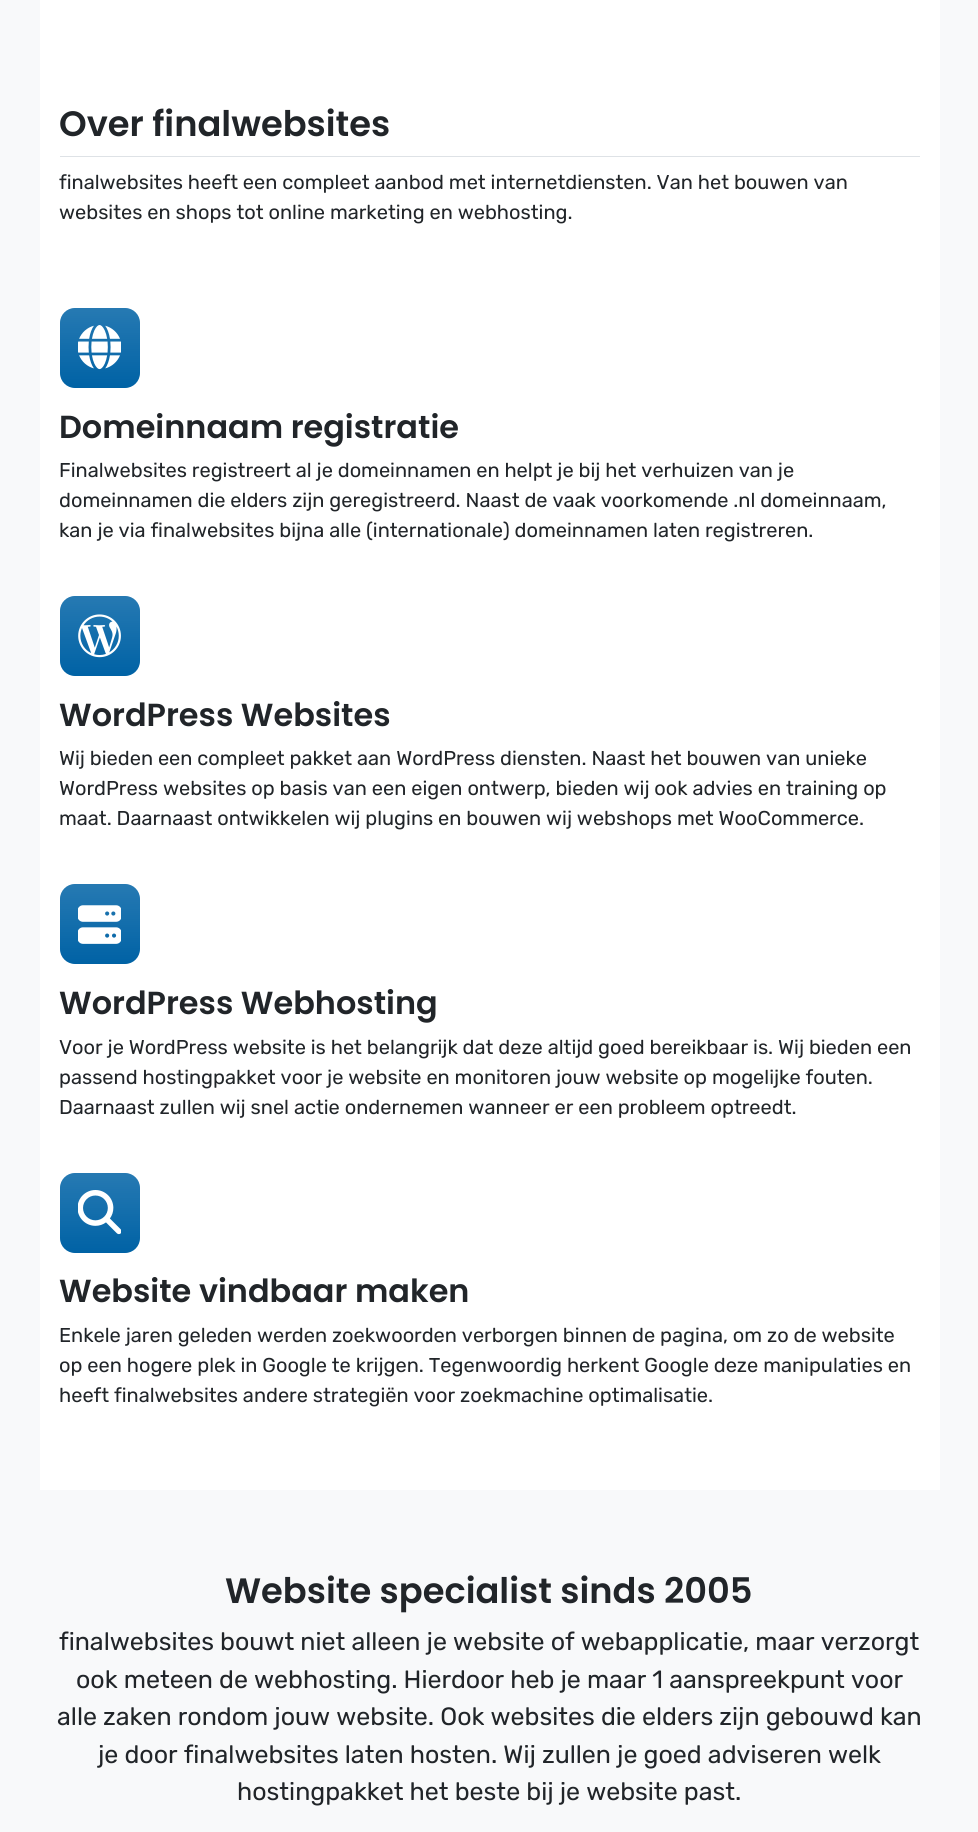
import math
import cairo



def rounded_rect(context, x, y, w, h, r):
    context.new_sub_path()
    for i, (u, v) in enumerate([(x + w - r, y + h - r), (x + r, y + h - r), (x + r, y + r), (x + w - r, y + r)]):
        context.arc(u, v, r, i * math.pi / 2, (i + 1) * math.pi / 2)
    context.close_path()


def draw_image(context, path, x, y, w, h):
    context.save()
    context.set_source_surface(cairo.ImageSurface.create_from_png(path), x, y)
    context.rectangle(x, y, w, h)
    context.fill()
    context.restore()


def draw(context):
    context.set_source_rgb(248 / 255, 249 / 255, 250 / 255)
    context.paint()
    context.set_source_rgb(1, 1, 1)
    context.rectangle(40, 0, 900, 1490)
    context.fill()
    context.set_source_rgb(222 / 255, 226 / 255, 230 / 255)
    context.rectangle(60, 156, 860, 1)
    context.fill()
    context.set_source_rgb(0, 98 / 255, 165 / 255)
    rounded_rect(context, 60, 308, 80, 80, 15)
    context.fill()
    gradient = cairo.LinearGradient(100, 308, 100, 388)
    gradient.add_color_stop_rgba(0, 1, 1, 1, 0.15)
    gradient.add_color_stop_rgba(1, 1, 1, 1, 0)
    context.set_source(gradient)
    rounded_rect(context, 60, 308, 80, 80, 15)
    context.fill()
    draw_image(context, "images/1.png", 78, 325, 43, 45)
    context.set_source_rgb(0, 98 / 255, 165 / 255)
    rounded_rect(context, 60, 596, 80, 80, 15)
    context.fill()
    gradient = cairo.LinearGradient(100, 596, 100, 676)
    gradient.add_color_stop_rgba(0, 1, 1, 1, 0.15)
    gradient.add_color_stop_rgba(1, 1, 1, 1, 0)
    context.set_source(gradient)
    rounded_rect(context, 60, 596, 80, 80, 15)
    context.fill()
    draw_image(context, "images/2.png", 78, 614, 43, 44)
    context.set_source_rgb(0, 98 / 255, 165 / 255)
    rounded_rect(context, 60, 884, 80, 80, 15)
    context.fill()
    gradient = cairo.LinearGradient(100, 884, 100, 964)
    gradient.add_color_stop_rgba(0, 1, 1, 1, 0.15)
    gradient.add_color_stop_rgba(1, 1, 1, 1, 0)
    context.set_source(gradient)
    rounded_rect(context, 60, 884, 80, 80, 15)
    context.fill()
    draw_image(context, "images/3.png", 78, 905, 43, 39)
    context.set_source_rgb(0, 98 / 255, 165 / 255)
    rounded_rect(context, 60, 1173, 80, 80, 15)
    context.fill()
    gradient = cairo.LinearGradient(100, 1173, 100, 1253)
    gradient.add_color_stop_rgba(0, 1, 1, 1, 0.15)
    gradient.add_color_stop_rgba(1, 1, 1, 1, 0)
    context.set_source(gradient)
    rounded_rect(context, 60, 1173, 80, 80, 15)
    context.fill()
    draw_image(context, "images/4.png", 78, 1190, 43, 45)
    context.select_font_face("Poppins SemiBold")
    context.set_font_size(35.25)
    context.set_source_rgb(33 / 255, 37 / 255, 41 / 255)
    context.move_to(59, 136)
    context.show_text("Over finalwebsites")
    context.select_font_face("Rubik")
    context.set_font_size(20)
    context.move_to(59, 189)
    context.show_text("finalwebsites heeft een compleet aanbod met internetdiensten. Van het bouwen van")
    context.move_to(59, 219)
    context.show_text("websites en shops tot online marketing en webhosting.")
    context.select_font_face("Poppins SemiBold")
    context.set_font_size(31.9)
    context.move_to(59, 438)
    context.show_text("Domeinnaam registratie")
    context.select_font_face("Rubik")
    context.set_font_size(20)
    context.move_to(59, 477)
    context.show_text("Finalwebsites registreert al je domeinnamen en helpt je bij het verhuizen van je")
    context.move_to(59, 507)
    context.show_text("domeinnamen die elders zijn geregistreerd. Naast de vaak voorkomende .nl domeinnaam,")
    context.move_to(59, 537)
    context.show_text("kan je via finalwebsites bijna alle (internationale) domeinnamen laten registreren.")
    context.select_font_face("Poppins SemiBold")
    context.set_font_size(31.9)
    context.move_to(59, 726)
    context.show_text("WordPress Websites")
    context.select_font_face("Rubik")
    context.set_font_size(20)
    context.move_to(59, 765)
    context.show_text("Wij bieden een compleet pakket aan WordPress diensten. Naast het bouwen van unieke")
    context.move_to(59, 795)
    context.show_text("WordPress websites op basis van een eigen ontwerp, bieden wij ook advies en training op")
    context.move_to(59, 825)
    context.show_text("maat. Daarnaast ontwikkelen wij plugins en bouwen wij webshops met WooCommerce.")
    context.select_font_face("Poppins SemiBold")
    context.set_font_size(31.9)
    context.move_to(59, 1014)
    context.show_text("WordPress Webhosting")
    context.select_font_face("Rubik")
    context.set_font_size(20)
    context.move_to(59, 1054)
    context.show_text("Voor je WordPress website is het belangrijk dat deze altijd goed bereikbaar is. Wij bieden een")
    context.move_to(59, 1084)
    context.show_text("passend hostingpakket voor je website en monitoren jouw website op mogelijke fouten.")
    context.move_to(59, 1114)
    context.show_text("Daarnaast zullen wij snel actie ondernemen wanneer er een probleem optreedt.")
    context.select_font_face("Poppins SemiBold")
    context.set_font_size(31.9)
    context.move_to(59, 1302)
    context.show_text("Website vindbaar maken")
    context.select_font_face("Rubik")
    context.set_font_size(20)
    context.move_to(59, 1342)
    context.show_text("Enkele jaren geleden werden zoekwoorden verborgen binnen de pagina, om zo de website")
    context.move_to(59, 1372)
    context.show_text("op een hogere plek in Google te krijgen. Tegenwoordig herkent Google deze manipulaties en")
    context.move_to(59, 1402)
    context.show_text("heeft finalwebsites andere strategiën voor zoekmachine optimalisatie.")
    context.select_font_face("Poppins SemiBold")
    context.set_font_size(35.25)
    context.move_to(225, 1603)
    context.show_text("Website specialist sinds 2005")
    context.select_font_face("Rubik")
    context.set_font_size(25)
    context.move_to(59, 1650)
    context.show_text("finalwebsites bouwt niet alleen je website of webapplicatie, maar verzorgt")
    context.move_to(76, 1688)
    context.show_text("ook meteen de webhosting. Hierdoor heb je maar 1 aanspreekpunt voor")
    context.move_to(57, 1725)
    context.show_text("alle zaken rondom jouw website. Ook websites die elders zijn gebouwd kan")
    context.move_to(98, 1763)
    context.show_text("je door finalwebsites laten hosten. Wij zullen je goed adviseren welk")
    context.move_to(237, 1800)
    context.show_text("hostingpakket het beste bij je website past.")


surface = cairo.ImageSurface(cairo.Format.RGB24, 978, 1832)
context = cairo.Context(surface)
options = cairo.FontOptions()
options.set_hint_metrics(cairo.HintMetrics.OFF)
options.set_hint_style(cairo.HintStyle.NONE)
context.set_font_options(options)
context.set_miter_limit(4)
draw(context)
surface.write_to_png("out.png")
